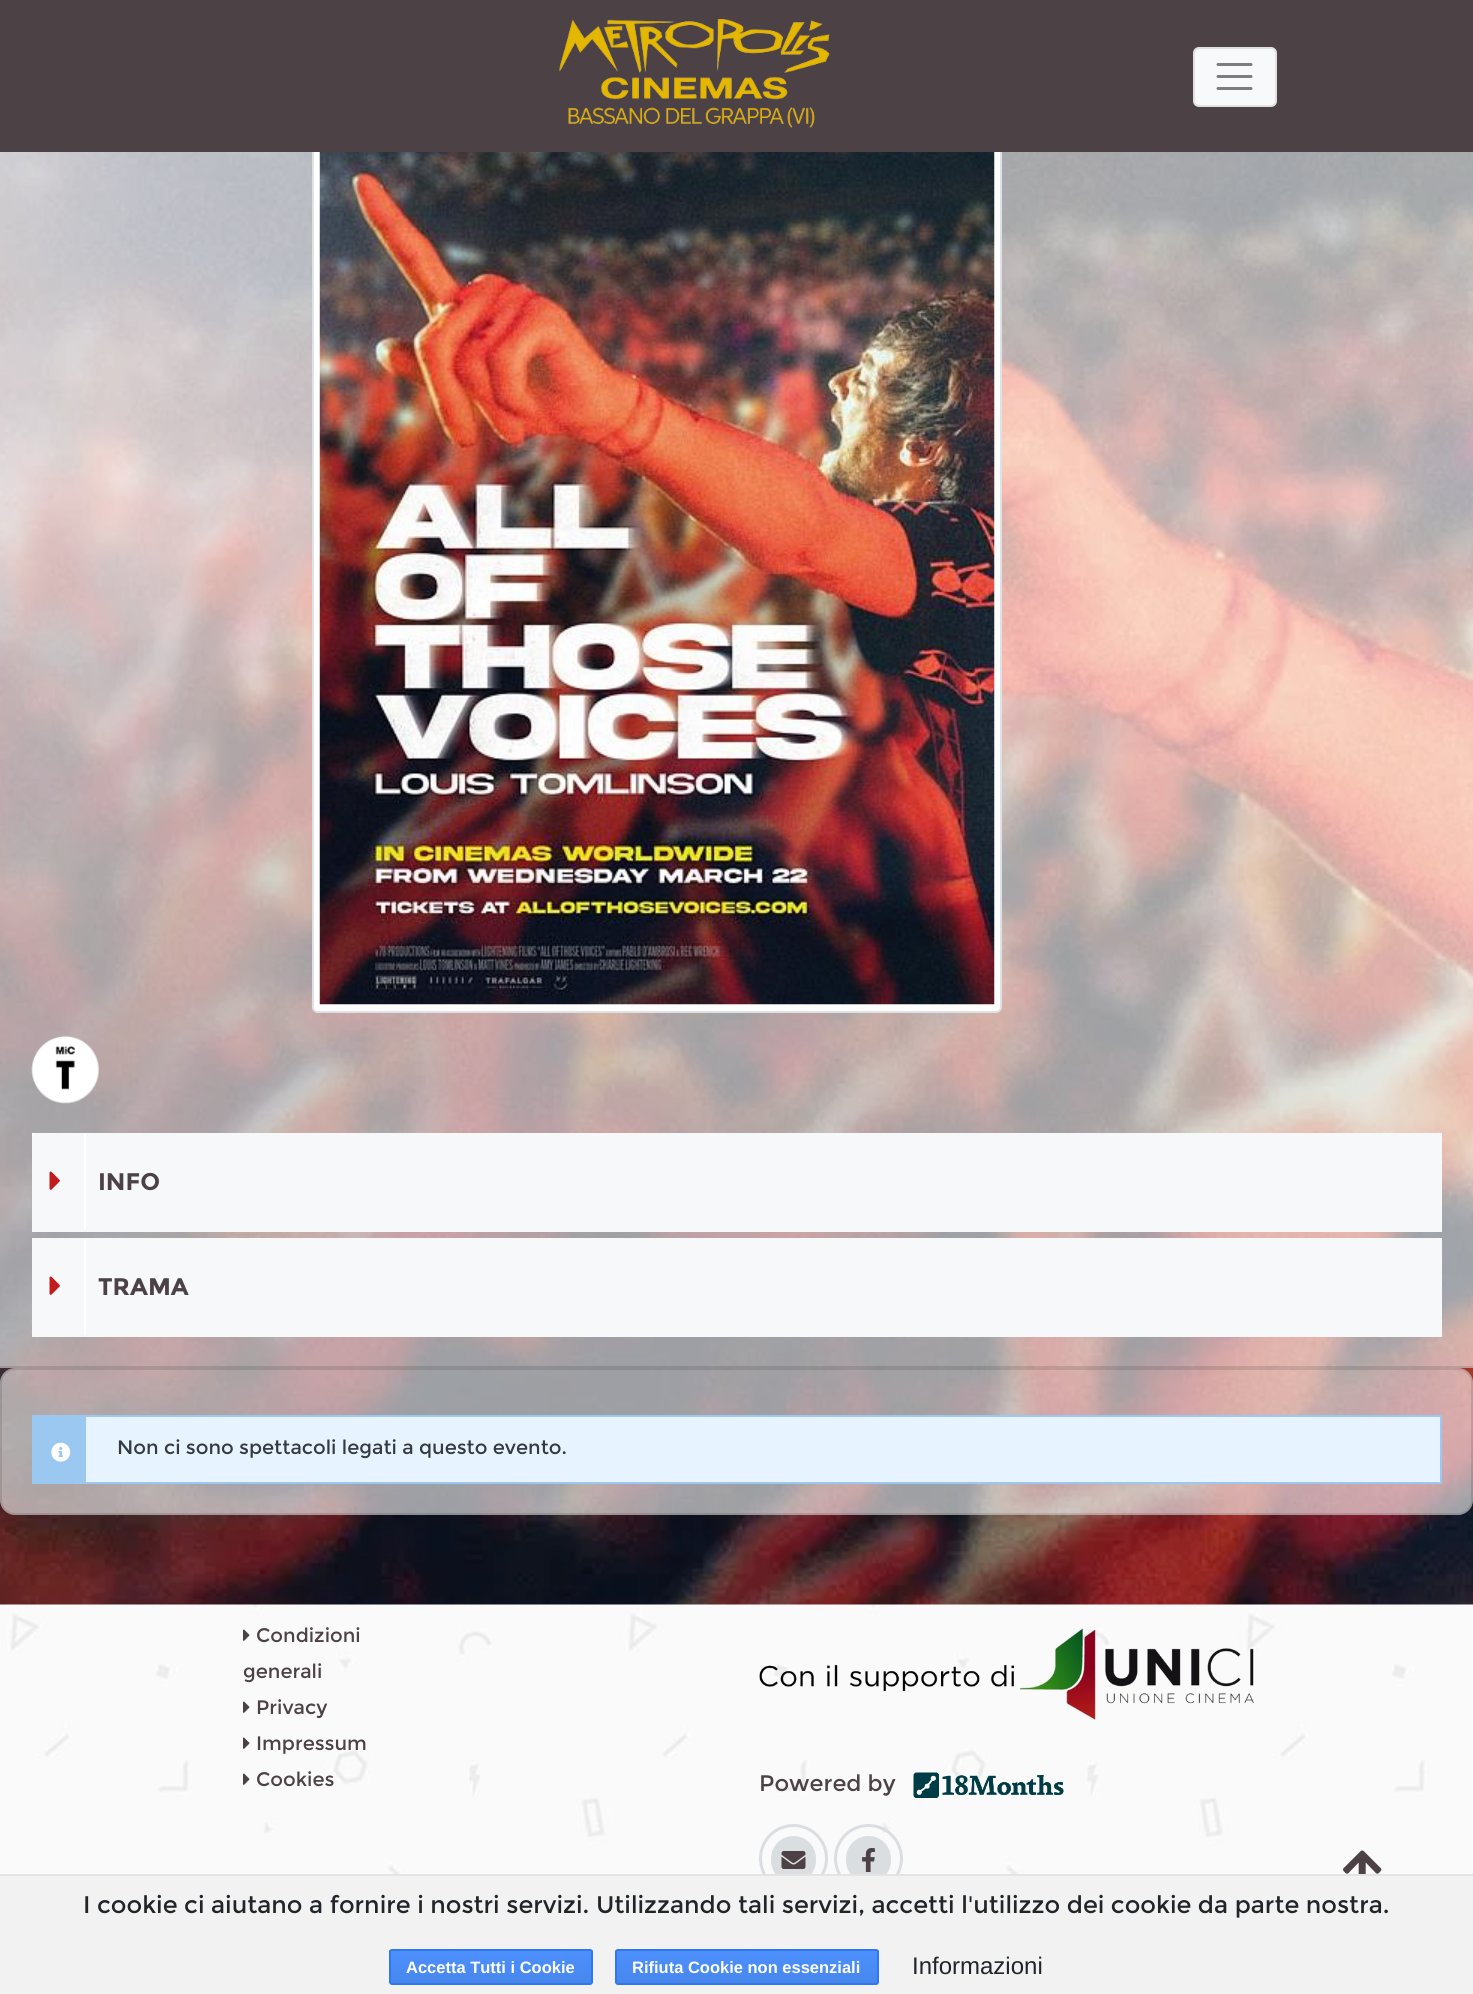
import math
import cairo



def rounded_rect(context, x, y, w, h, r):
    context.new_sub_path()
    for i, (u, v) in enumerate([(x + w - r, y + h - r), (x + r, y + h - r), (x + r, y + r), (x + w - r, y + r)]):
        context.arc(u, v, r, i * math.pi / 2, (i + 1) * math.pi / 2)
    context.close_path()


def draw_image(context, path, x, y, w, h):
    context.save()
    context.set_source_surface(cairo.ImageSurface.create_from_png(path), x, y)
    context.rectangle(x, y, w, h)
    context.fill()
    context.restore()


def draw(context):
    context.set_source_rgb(1, 1, 1)
    context.paint()
    draw_image(context, "images/2.png", 0, 152, 1473, 1453)
    context.set_source_rgba(1, 1, 1, 0.6)
    context.rectangle(0, 152, 1473, 1216)
    context.fill()
    context.rectangle(-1, -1, 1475, 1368)
    context.set_source_rgba(0, 0, 0, 0.12)
    context.stroke()
    context.set_source_rgb(1, 1, 1)
    rounded_rect(context, 313, 54, 688, 958, 5)
    context.fill_preserve()
    context.set_source_rgb(222 / 255, 226 / 255, 230 / 255)
    context.stroke()
    context.set_source_rgb(76 / 255, 65 / 255, 69 / 255)
    context.rectangle(0, 0, 1473, 152)
    context.fill()
    draw_image(context, "images/1.png", 559, 19, 271, 109)
    context.set_source_rgb(248 / 255, 249 / 255, 250 / 255)
    rounded_rect(context, 1193, 47, 84, 60, 6)
    context.fill()
    rounded_rect(context, 1194, 48, 82, 58, 5)
    context.set_source_rgba(0, 0, 0, 0.1)
    context.stroke()
    context.new_path()
    context.move_to(1218, 64.5)
    context.line_to(1251, 64.5)
    context.move_to(1218, 76.5)
    context.line_to(1251, 76.5)
    context.move_to(1218, 88.5)
    context.line_to(1251, 88.5)
    context.set_source_rgb(124 / 255, 125 / 255, 125 / 255)
    context.set_line_width(3)
    context.set_line_cap(cairo.LineCap.ROUND)
    context.stroke()
    draw_image(context, "images/3.png", 319, 152, 676, 853)
    draw_image(context, "images/4.png", 31, 1036, 68, 68)
    context.set_source_rgb(1, 1, 1)
    context.rectangle(32, 1133, 5, 5)
    context.fill()
    context.set_source_rgb(247 / 255, 248 / 255, 249 / 255)
    context.new_path()
    context.move_to(37, 1133)
    context.line_to(1442, 1133)
    context.line_to(1442, 1232)
    context.line_to(32, 1232)
    context.line_to(32, 1138)
    context.curve_to(32, 1135, 34, 1133, 37, 1133)
    context.close_path()
    context.fill()
    context.rectangle(33, 1134, 1, 1)
    context.fill()
    context.set_source_rgb(1, 1, 1)
    context.rectangle(84, 1134, 2, 96)
    context.fill()
    draw_image(context, "images/5.png", 49, 1171, 11, 19)
    context.rectangle(1437, 1238, 5, 5)
    context.fill()
    context.set_source_rgb(247 / 255, 248 / 255, 249 / 255)
    context.new_path()
    context.move_to(32, 1238)
    context.line_to(1437, 1238)
    context.curve_to(1440, 1238, 1442, 1240, 1442, 1243)
    context.line_to(1442, 1337)
    context.line_to(32, 1337)
    context.close_path()
    context.fill()
    context.set_source_rgb(1, 1, 1)
    context.rectangle(84, 1239, 2, 96)
    context.fill()
    draw_image(context, "images/5.png", 49, 1276, 11, 19)
    context.set_source_rgba(1, 1, 1, 0.6)
    rounded_rect(context, 0, 1368, 1473, 147, 15)
    context.fill()
    rounded_rect(context, 1, 1369, 1471, 145, 14)
    context.set_source_rgba(0, 0, 0, 0.12)
    context.set_line_width(2)
    context.set_line_cap(cairo.LineCap.BUTT)
    context.stroke()
    context.set_source_rgb(231 / 255, 244 / 255, 1)
    context.rectangle(86, 1417, 1354, 65)
    context.fill()
    context.rectangle(33, 1416, 1408, 67)
    context.set_source_rgb(154 / 255, 200 / 255, 241 / 255)
    context.stroke()
    context.rectangle(34, 1417, 52, 65)
    context.fill()
    draw_image(context, "images/6.png", 51, 1442, 20, 20)
    draw_image(context, "images/7.png", 0, 1604, 1473, 270)
    draw_image(context, "images/8.png", 243, 1629, 7, 12)
    draw_image(context, "images/8.png", 243, 1701, 7, 12)
    draw_image(context, "images/8.png", 243, 1737, 7, 12)
    draw_image(context, "images/8.png", 243, 1773, 7, 12)
    draw_image(context, "images/9.png", 759, 1628, 495, 92)
    draw_image(context, "images/10.png", 913, 1772, 151, 26)
    context.set_source_rgb(219 / 255, 222 / 255, 225 / 255)
    rounded_rect(context, 771, 1836, 45, 47, 22.5)
    context.fill()
    draw_image(context, "images/11.png", 781, 1851, 25, 18)
    context.arc(793.5, 1858.5, 33, 0, 2 * math.pi)
    context.set_line_width(3)
    context.stroke()
    rounded_rect(context, 846, 1836, 45, 47, 22.5)
    context.fill()
    draw_image(context, "images/12.png", 862, 1848, 13, 24)
    context.arc(868.5, 1858.5, 33, 0, 2 * math.pi)
    context.stroke()
    context.set_source_rgb(242 / 255, 242 / 255, 242 / 255)
    context.rectangle(0, 1876, 1473, 118)
    context.fill()
    context.set_source_rgb(228 / 255, 228 / 255, 228 / 255)
    context.rectangle(0, 1874, 1473, 2)
    context.fill()
    context.save()
    rounded_rect(context, 389, 1949, 204, 36, 3)
    context.clip()
    gradient = cairo.LinearGradient(491, 1950, 491, 1983)
    gradient.add_color_stop_rgba(0, 77 / 255, 144 / 255, 254 / 255, 1)
    gradient.add_color_stop_rgba(1, 71 / 255, 135 / 255, 237 / 255, 1)
    context.set_source(gradient)
    context.rectangle(389, 1950, 204, 33)
    context.fill()
    context.restore()
    rounded_rect(context, 390, 1950, 202, 34, 2)
    context.set_source_rgb(48 / 255, 121 / 255, 237 / 255)
    context.set_line_width(2)
    context.stroke()
    context.save()
    rounded_rect(context, 615, 1949, 264, 36, 3)
    context.clip()
    gradient = cairo.LinearGradient(747, 1950, 747, 1983)
    gradient.add_color_stop_rgba(0, 77 / 255, 144 / 255, 254 / 255, 1)
    gradient.add_color_stop_rgba(1, 71 / 255, 135 / 255, 237 / 255, 1)
    context.set_source(gradient)
    context.rectangle(615, 1950, 264, 33)
    context.fill()
    context.restore()
    rounded_rect(context, 616, 1950, 262, 34, 2)
    context.stroke()
    draw_image(context, "images/13.png", 1343, 1850, 39, 24)
    context.select_font_face("Montserrat", cairo.FontSlant.NORMAL, cairo.FontWeight.BOLD)
    context.set_font_size(24)
    context.set_source_rgb(76 / 255, 65 / 255, 69 / 255)
    context.move_to(98, 1190)
    context.show_text("INFO")
    context.move_to(98, 1295)
    context.show_text("TRAMA")
    context.select_font_face("Montserrat")
    context.set_font_size(19.5)
    context.set_source_rgb(52 / 255, 58 / 255, 64 / 255)
    context.move_to(117, 1454)
    context.show_text("Non ci sono spettacoli legati a questo evento.")
    context.set_source_rgb(76 / 255, 65 / 255, 69 / 255)
    context.move_to(256, 1642)
    context.show_text("Condizioni")
    context.move_to(243, 1678)
    context.show_text("generali")
    context.move_to(256, 1714)
    context.show_text("Privacy")
    context.move_to(256, 1750)
    context.show_text("Impressum")
    context.move_to(256, 1786)
    context.show_text("Cookies")
    context.set_font_size(22.5)
    context.move_to(759, 1791)
    context.show_text("Powered by")
    context.set_font_size(24)
    context.set_source_rgb(33 / 255, 37 / 255, 41 / 255)
    context.move_to(83, 1913)
    context.show_text("I cookie ci aiutano a fornire i nostri servizi. Utilizzando tali servizi, accetti l'utilizzo dei cookie da parte nostra.")
    context.select_font_face("Liberation Sans", cairo.FontSlant.NORMAL, cairo.FontWeight.BOLD)
    context.set_font_size(16.5)
    context.set_source_rgb(1, 1, 1)
    context.move_to(406, 1973)
    context.show_text("Accetta Tutti i Cookie")
    context.move_to(632, 1973)
    context.show_text("Rifiuta Cookie non essenziali")
    context.select_font_face("Liberation Sans")
    context.set_font_size(24)
    context.set_source_rgb(33 / 255, 37 / 255, 41 / 255)
    context.move_to(912, 1974)
    context.show_text("Informazioni")


surface = cairo.ImageSurface(cairo.Format.RGB24, 1473, 1994)
context = cairo.Context(surface)
options = cairo.FontOptions()
options.set_hint_metrics(cairo.HintMetrics.OFF)
options.set_hint_style(cairo.HintStyle.NONE)
context.set_font_options(options)
context.set_miter_limit(4)
draw(context)
surface.write_to_png("out.png")
